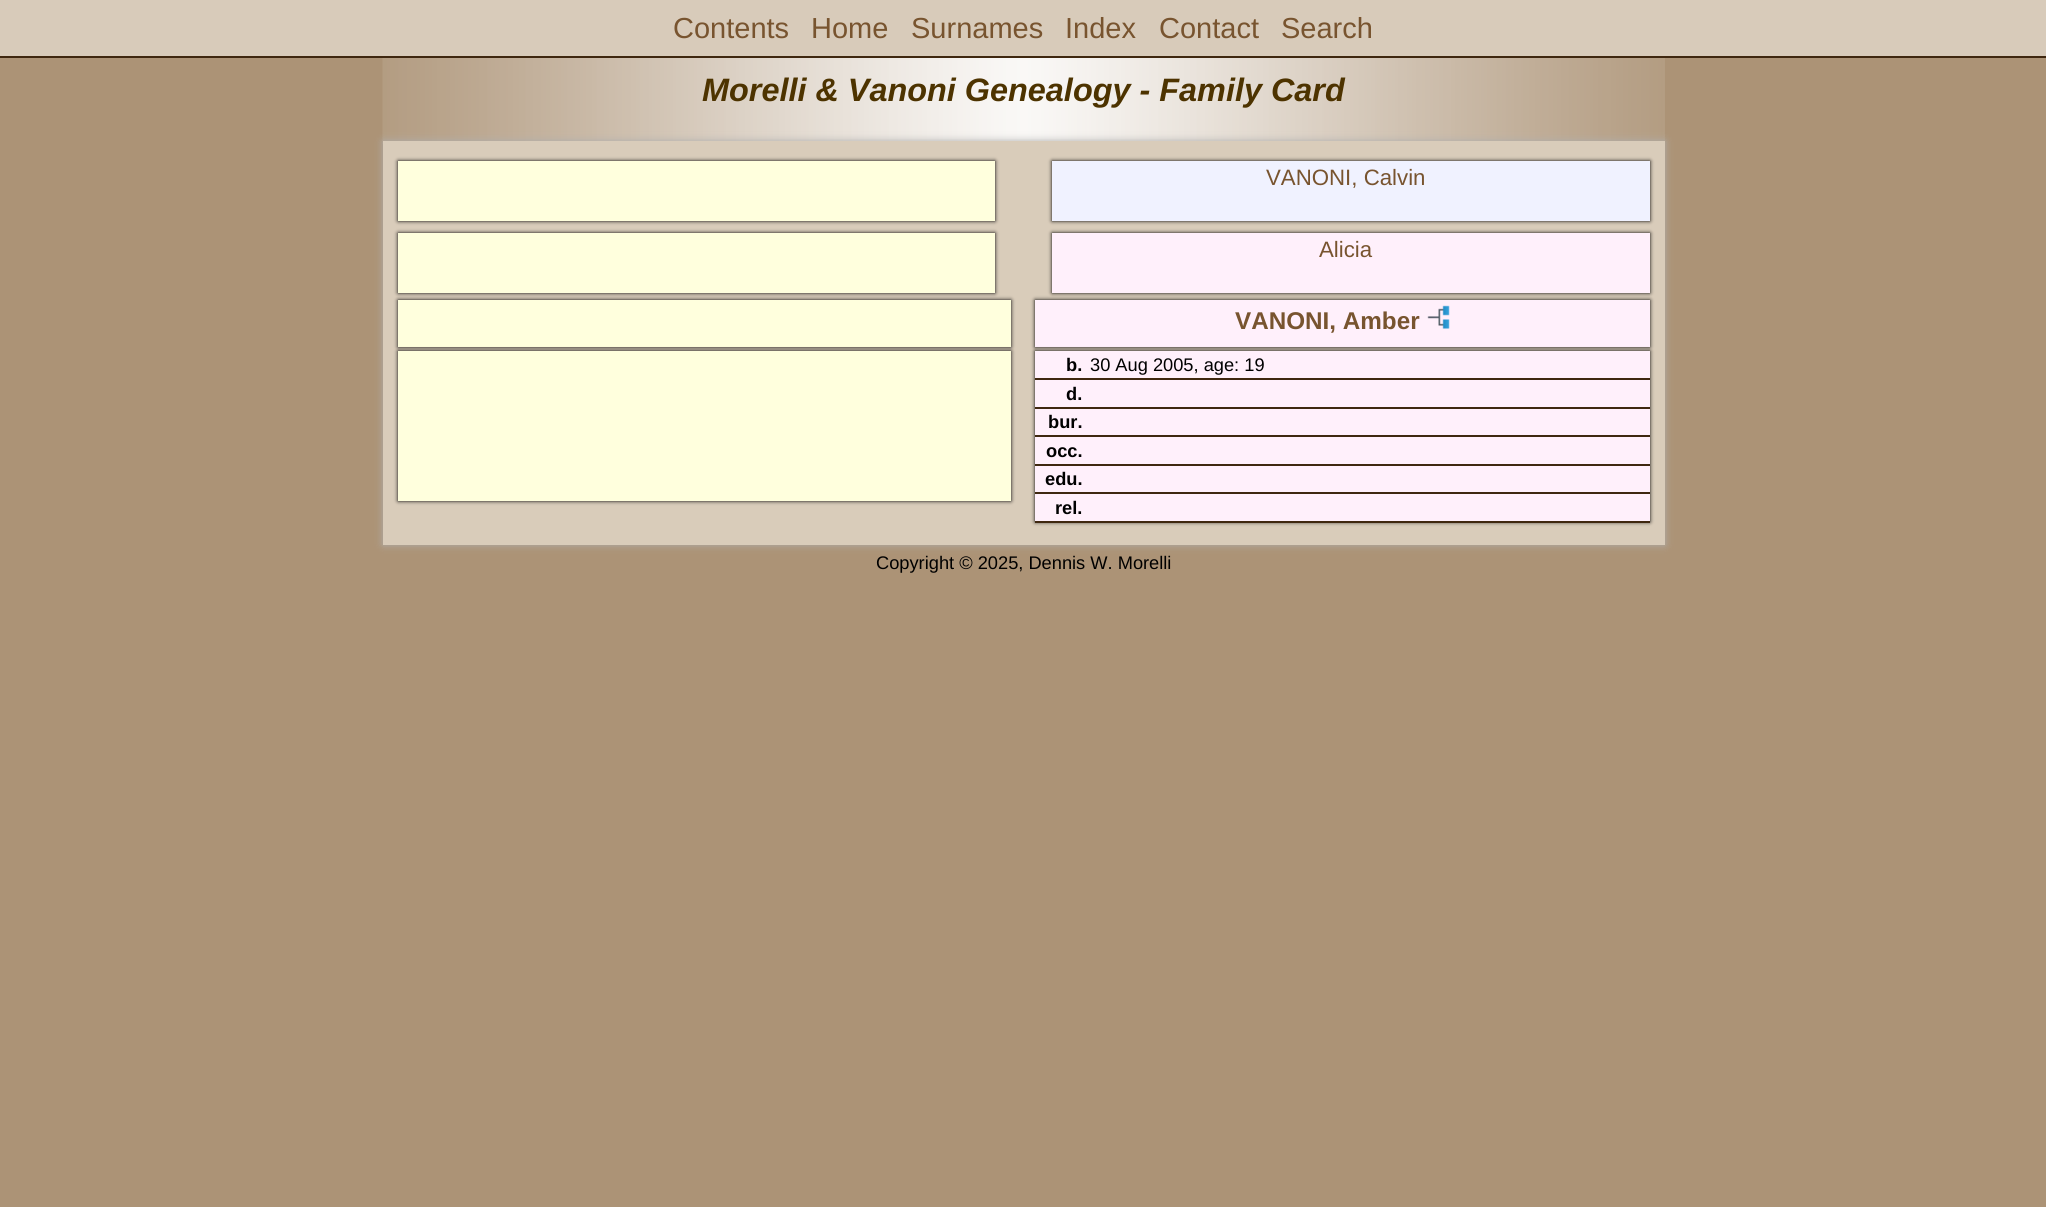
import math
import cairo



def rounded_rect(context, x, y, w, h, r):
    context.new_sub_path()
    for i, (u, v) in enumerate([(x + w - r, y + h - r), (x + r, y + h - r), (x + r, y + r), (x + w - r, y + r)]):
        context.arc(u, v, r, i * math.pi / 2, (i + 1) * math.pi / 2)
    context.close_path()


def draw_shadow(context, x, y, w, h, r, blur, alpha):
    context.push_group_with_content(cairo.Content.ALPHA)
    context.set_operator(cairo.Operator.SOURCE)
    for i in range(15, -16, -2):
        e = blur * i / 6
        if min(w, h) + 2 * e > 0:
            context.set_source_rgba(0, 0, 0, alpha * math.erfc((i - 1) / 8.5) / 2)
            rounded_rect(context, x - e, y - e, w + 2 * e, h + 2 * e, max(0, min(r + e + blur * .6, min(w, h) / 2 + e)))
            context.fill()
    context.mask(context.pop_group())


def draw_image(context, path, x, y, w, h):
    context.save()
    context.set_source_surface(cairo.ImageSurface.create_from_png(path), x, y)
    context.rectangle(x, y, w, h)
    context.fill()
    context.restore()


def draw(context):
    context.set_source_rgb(172 / 255, 147 / 255, 118 / 255)
    context.paint()
    draw_image(context, "images/1.png", 382, 55, 1283, 89)
    context.set_source_rgba(217 / 255, 204 / 255, 186 / 255, 0.95)
    context.rectangle(0, 0, 2046, 56)
    context.fill()
    context.set_source_rgba(63 / 255, 39 / 255, 15 / 255, 0.95)
    context.rectangle(0, 56, 2046, 2)
    context.fill()
    context.set_source_rgba(217 / 255, 204 / 255, 186 / 255, 0.95)
    context.rectangle(0, 0, 2046, 56)
    context.fill()
    context.set_source_rgba(63 / 255, 39 / 255, 15 / 255, 0.95)
    context.rectangle(0, 56, 2046, 2)
    context.fill()
    context.set_source_rgb(174 / 255, 174 / 255, 174 / 255)
    draw_shadow(context, 383, 141, 1282, 404, 0, 4, 1)
    context.set_source_rgb(217 / 255, 204 / 255, 186 / 255)
    context.rectangle(383, 141, 1282, 404)
    context.fill()
    context.set_source_rgb(0, 0, 0)
    draw_shadow(context, 398, 161, 597, 60, 0, 2, 1)
    context.set_source_rgb(1, 1, 221 / 255)
    context.rectangle(398, 161, 597, 60)
    context.fill()
    context.set_source_rgb(0, 0, 0)
    draw_shadow(context, 1052, 161, 598, 60, 0, 2, 1)
    context.set_source_rgb(240 / 255, 242 / 255, 1)
    context.rectangle(1052, 161, 598, 60)
    context.fill()
    context.set_source_rgb(0, 0, 0)
    draw_shadow(context, 398, 233, 597, 60, 0, 2, 1)
    context.set_source_rgb(1, 1, 221 / 255)
    context.rectangle(398, 233, 597, 60)
    context.fill()
    context.set_source_rgb(0, 0, 0)
    draw_shadow(context, 1052, 233, 598, 60, 0, 2, 1)
    context.set_source_rgb(1, 240 / 255, 251 / 255)
    context.rectangle(1052, 233, 598, 60)
    context.fill()
    context.set_source_rgb(0, 0, 0)
    draw_shadow(context, 398, 300, 613, 47, 0, 2, 1)
    context.set_source_rgb(1, 1, 221 / 255)
    context.rectangle(398, 300, 613, 47)
    context.fill()
    context.set_source_rgb(0, 0, 0)
    draw_shadow(context, 1035, 300, 615, 47, 0, 2, 1)
    context.set_source_rgb(1, 240 / 255, 251 / 255)
    context.rectangle(1035, 300, 615, 47)
    context.fill()
    draw_image(context, "images/2.png", 1427, 305, 23, 24)
    context.set_source_rgb(0, 0, 0)
    draw_shadow(context, 398, 351, 613, 150, 0, 2, 1)
    context.set_source_rgb(1, 1, 221 / 255)
    context.rectangle(398, 351, 613, 150)
    context.fill()
    context.set_source_rgb(0, 0, 0)
    draw_shadow(context, 1035, 351, 615, 171, 0, 2, 1)
    context.set_source_rgb(1, 240 / 255, 251 / 255)
    context.rectangle(1035, 351, 615, 170)
    context.fill()
    context.set_source_rgb(63 / 255, 39 / 255, 15 / 255)
    context.rectangle(1035, 378, 615, 2)
    context.fill()
    context.rectangle(1035, 407, 615, 2)
    context.fill()
    context.rectangle(1035, 435, 615, 2)
    context.fill()
    context.rectangle(1035, 464, 615, 2)
    context.fill()
    context.rectangle(1035, 492, 615, 2)
    context.fill()
    context.rectangle(1035, 521, 615, 2)
    context.fill()
    context.select_font_face("Liberation Sans")
    context.set_font_size(29)
    context.set_source_rgb(120 / 255, 84 / 255, 47 / 255)
    context.move_to(673, 38)
    context.show_text("Contents")
    context.move_to(811, 38)
    context.show_text("Home")
    context.move_to(911, 38)
    context.show_text("Surnames")
    context.move_to(1065, 38)
    context.show_text("Index")
    context.move_to(1159, 38)
    context.show_text("Contact")
    context.move_to(1281, 38)
    context.show_text("Search")
    context.select_font_face("Liberation Sans", cairo.FontSlant.ITALIC, cairo.FontWeight.BOLD)
    context.set_font_size(32.4)
    context.set_source_rgb(77 / 255, 51 / 255, 0)
    context.move_to(702, 101)
    context.show_text("Morelli & Vanoni Genealogy - Family Card")
    context.select_font_face("Liberation Sans")
    context.set_font_size(22.25)
    context.set_source_rgb(120 / 255, 84 / 255, 47 / 255)
    context.move_to(1266, 185)
    context.show_text("VANONI, Calvin")
    context.move_to(1319, 257)
    context.show_text("Alicia")
    context.select_font_face("Liberation Sans", cairo.FontSlant.NORMAL, cairo.FontWeight.BOLD)
    context.set_font_size(24.25)
    context.move_to(1235, 329)
    context.show_text("VANONI, Amber")
    context.set_font_size(18.25)
    context.set_source_rgb(0, 0, 0)
    context.move_to(1066, 371)
    context.show_text("b.")
    context.select_font_face("Liberation Sans")
    context.move_to(1090, 371)
    context.show_text("30 Aug 2005, age: 19")
    context.select_font_face("Liberation Sans", cairo.FontSlant.NORMAL, cairo.FontWeight.BOLD)
    context.move_to(1066, 400)
    context.show_text("d.")
    context.move_to(1048, 428)
    context.show_text("bur.")
    context.move_to(1046, 457)
    context.show_text("occ.")
    context.move_to(1045, 485)
    context.show_text("edu.")
    context.move_to(1055, 514)
    context.show_text("rel.")
    context.select_font_face("Liberation Sans")
    context.move_to(876, 569)
    context.show_text("Copyright © 2025, Dennis W. Morelli")


surface = cairo.ImageSurface(cairo.Format.RGB24, 2046, 1207)
context = cairo.Context(surface)
options = cairo.FontOptions()
options.set_hint_metrics(cairo.HintMetrics.OFF)
options.set_hint_style(cairo.HintStyle.NONE)
context.set_font_options(options)
context.set_miter_limit(4)
draw(context)
surface.write_to_png("out.png")
